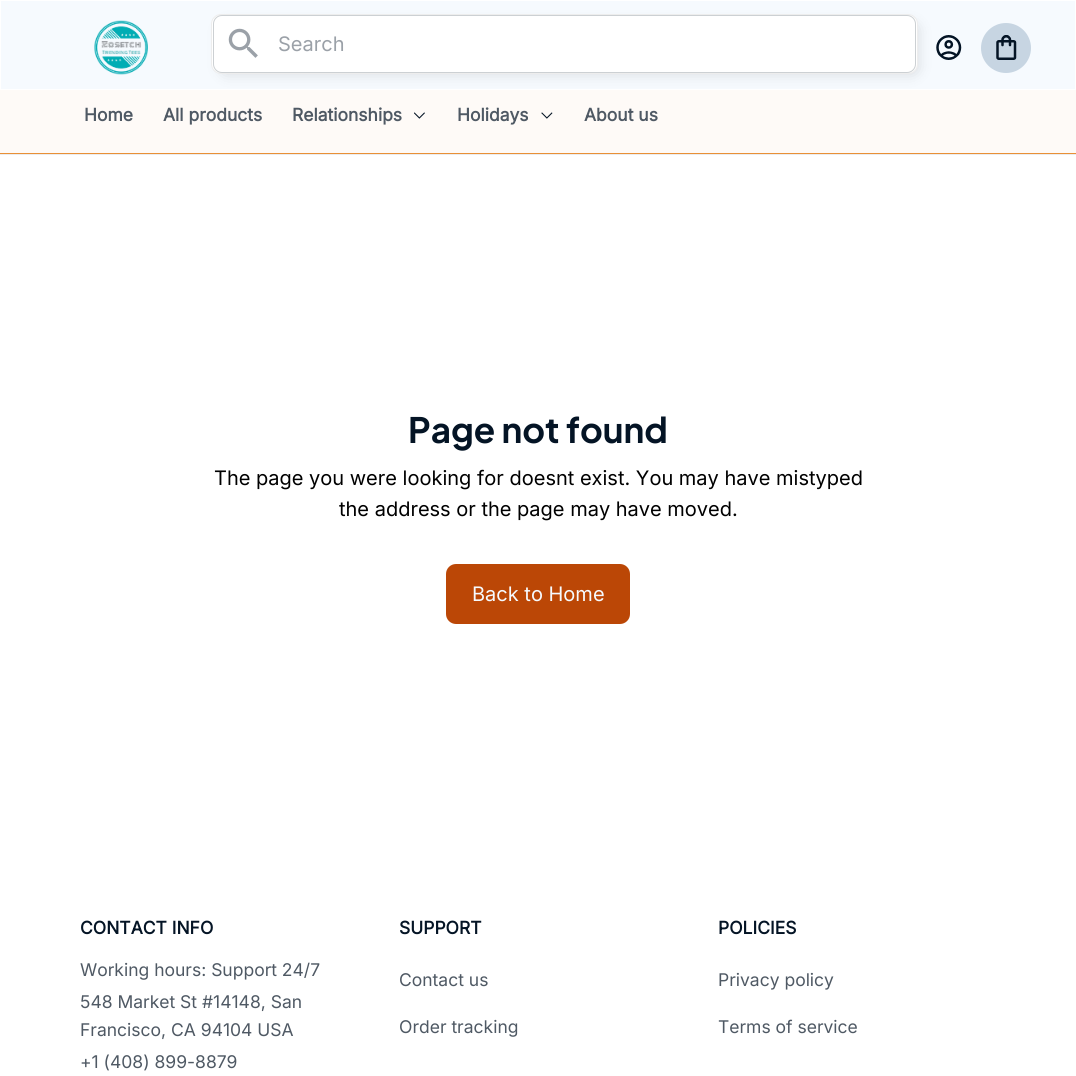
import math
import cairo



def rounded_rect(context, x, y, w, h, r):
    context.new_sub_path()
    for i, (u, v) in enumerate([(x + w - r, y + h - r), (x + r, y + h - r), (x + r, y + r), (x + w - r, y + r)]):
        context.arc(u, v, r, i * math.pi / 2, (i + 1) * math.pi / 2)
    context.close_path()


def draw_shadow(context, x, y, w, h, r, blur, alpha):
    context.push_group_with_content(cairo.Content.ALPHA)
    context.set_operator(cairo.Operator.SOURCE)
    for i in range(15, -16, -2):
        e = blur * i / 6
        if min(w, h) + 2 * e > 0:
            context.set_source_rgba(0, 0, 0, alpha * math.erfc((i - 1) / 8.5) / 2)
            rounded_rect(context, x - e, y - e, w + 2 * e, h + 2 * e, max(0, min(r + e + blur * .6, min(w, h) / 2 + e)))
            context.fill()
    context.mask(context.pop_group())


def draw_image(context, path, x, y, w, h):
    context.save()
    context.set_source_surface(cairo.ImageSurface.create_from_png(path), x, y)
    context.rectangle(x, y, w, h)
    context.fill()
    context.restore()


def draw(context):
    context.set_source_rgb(1, 1, 1)
    context.paint()
    context.set_source_rgb(246 / 255, 250 / 255, 254 / 255)
    context.rectangle(1, 1, 1074, 88)
    context.fill()
    draw_image(context, "images/1.png", 94, 20, 54, 55)
    context.set_source_rgb(0, 0, 0)
    draw_shadow(context, 221, 24, 697, 50, 5, 7.5, 0.12)
    context.set_source_rgb(1, 1, 1)
    rounded_rect(context, 211, 14, 707, 60, 10)
    context.fill()
    rounded_rect(context, 211.5, 14.5, 706, 59, 9.5)
    context.set_source_rgba(77 / 255, 77 / 255, 77 / 255, 0.1)
    context.set_line_width(1)
    context.stroke()
    rounded_rect(context, 213.5, 15.5, 702, 57, 8.5)
    context.set_source_rgba(4 / 255, 20 / 255, 37 / 255, 0.2)
    context.stroke()
    draw_image(context, "images/2.png", 228, 28, 30, 30)
    draw_image(context, "images/3.png", 936, 35, 26, 25)
    context.set_source_rgb(199 / 255, 213 / 255, 226 / 255)
    context.arc(1006, 48, 25, 0, 2 * math.pi)
    context.fill()
    draw_image(context, "images/4.png", 996, 35, 21, 25)
    context.set_source_rgb(254 / 255, 250 / 255, 247 / 255)
    context.rectangle(0, 90, 1076, 63)
    context.fill()
    context.set_source_rgb(233 / 255, 144 / 255, 54 / 255)
    context.rectangle(0, 153, 1076, 1)
    context.fill()
    draw_image(context, "images/5.png", 414, 112, 11, 7)
    draw_image(context, "images/6.png", 541, 112, 12, 7)
    context.set_source_rgb(235 / 255, 236 / 255, 238 / 255)
    context.rectangle(0, 154, 1076, 1)
    context.fill()
    context.set_source_rgb(187 / 255, 71 / 255, 6 / 255)
    rounded_rect(context, 446, 564, 184, 60, 10)
    context.fill()
    context.select_font_face("Inter")
    context.set_font_size(20)
    context.set_source_rgb(155 / 255, 161 / 255, 168 / 255)
    context.move_to(278, 51)
    context.show_text("Search")
    context.select_font_face("Inter", cairo.FontSlant.NORMAL, cairo.FontWeight.BOLD)
    context.set_font_size(17.5)
    context.set_source_rgb(79 / 255, 89 / 255, 100 / 255)
    context.move_to(84, 121)
    context.show_text("Home")
    context.move_to(163, 121)
    context.show_text("All products")
    context.move_to(292, 121)
    context.show_text("Relationships")
    context.move_to(457, 121)
    context.show_text("Holidays")
    context.move_to(584, 121)
    context.show_text("About us")
    context.select_font_face("Plus Jakarta Sans", cairo.FontSlant.NORMAL, cairo.FontWeight.BOLD)
    context.set_font_size(35)
    context.set_source_rgb(4 / 255, 20 / 255, 37 / 255)
    context.move_to(408, 443)
    context.show_text("Page not found")
    context.select_font_face("Inter")
    context.set_font_size(20)
    context.set_source_rgb(0, 0, 0)
    context.move_to(214, 485)
    context.show_text("The page you were looking for doesnt exist. You may have mistyped")
    context.move_to(339, 516)
    context.show_text("the address or the page may have moved.")
    context.set_source_rgb(246 / 255, 250 / 255, 254 / 255)
    context.move_to(472, 601)
    context.show_text("Back to Home")
    context.select_font_face("Inter", cairo.FontSlant.NORMAL, cairo.FontWeight.BOLD)
    context.set_font_size(17.5)
    context.set_source_rgb(4 / 255, 20 / 255, 37 / 255)
    context.move_to(80, 934)
    context.show_text("CONTACT INFO")
    context.select_font_face("Inter")
    context.set_source_rgb(79 / 255, 89 / 255, 100 / 255)
    context.move_to(80, 976)
    context.show_text("Working hours: Support 24/7")
    context.move_to(80, 1008)
    context.show_text("548 Market St #14148, San")
    context.move_to(80, 1036)
    context.show_text("Francisco, CA 94104 USA")
    context.move_to(80, 1068)
    context.show_text("+1 (408) 899-8879")
    context.select_font_face("Inter", cairo.FontSlant.NORMAL, cairo.FontWeight.BOLD)
    context.set_source_rgb(4 / 255, 20 / 255, 37 / 255)
    context.move_to(399, 934)
    context.show_text("SUPPORT")
    context.select_font_face("Inter")
    context.set_source_rgb(79 / 255, 89 / 255, 100 / 255)
    context.move_to(399, 986)
    context.show_text("Contact us")
    context.move_to(399, 1033)
    context.show_text("Order tracking")
    context.select_font_face("Inter", cairo.FontSlant.NORMAL, cairo.FontWeight.BOLD)
    context.set_source_rgb(4 / 255, 20 / 255, 37 / 255)
    context.move_to(718, 934)
    context.show_text("POLICIES")
    context.select_font_face("Inter")
    context.set_source_rgb(79 / 255, 89 / 255, 100 / 255)
    context.move_to(718, 986)
    context.show_text("Privacy policy")
    context.move_to(718, 1033)
    context.show_text("Terms of service")


surface = cairo.ImageSurface(cairo.Format.RGB24, 1076, 1076)
context = cairo.Context(surface)
options = cairo.FontOptions()
options.set_hint_metrics(cairo.HintMetrics.OFF)
options.set_hint_style(cairo.HintStyle.NONE)
context.set_font_options(options)
context.set_miter_limit(4)
draw(context)
surface.write_to_png("out.png")
